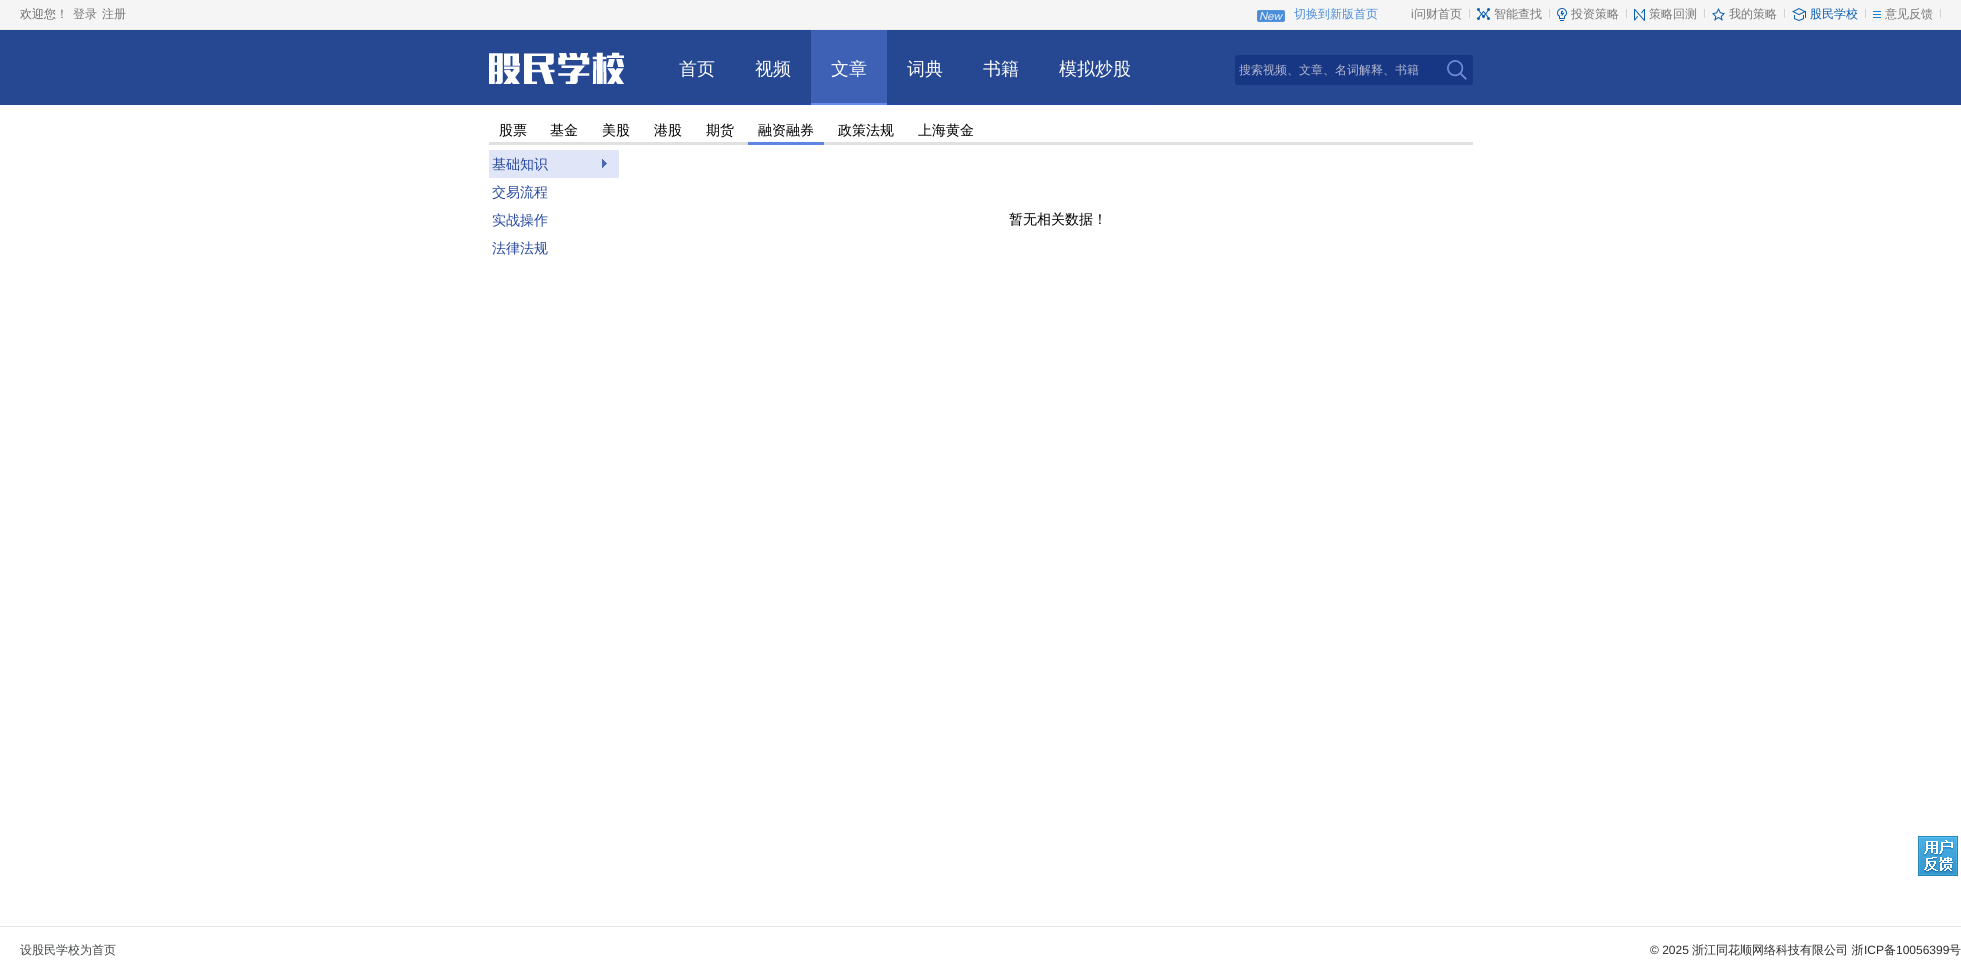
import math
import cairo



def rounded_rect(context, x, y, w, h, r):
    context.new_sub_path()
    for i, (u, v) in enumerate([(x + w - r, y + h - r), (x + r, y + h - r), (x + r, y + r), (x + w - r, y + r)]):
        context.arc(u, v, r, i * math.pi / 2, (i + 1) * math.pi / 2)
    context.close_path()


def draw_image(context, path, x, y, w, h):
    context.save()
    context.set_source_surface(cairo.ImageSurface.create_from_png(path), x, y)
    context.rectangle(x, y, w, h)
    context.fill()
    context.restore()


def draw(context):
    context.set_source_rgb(1, 1, 1)
    context.paint()
    context.set_source_rgb(38 / 255, 72 / 255, 146 / 255)
    context.rectangle(0, 30, 1961, 75)
    context.fill()
    context.set_source_rgb(245 / 255, 245 / 255, 245 / 255)
    context.rectangle(0, 0, 1961, 29)
    context.fill()
    context.set_source_rgb(238 / 255, 238 / 255, 238 / 255)
    context.rectangle(0, 29, 1961, 1)
    context.fill()
    draw_image(context, "images/1.png", 1257, 10, 28, 12)
    context.set_source_rgb(210 / 255, 210 / 255, 210 / 255)
    context.rectangle(1469, 9, 1, 9)
    context.fill()
    draw_image(context, "images/2.png", 1477, 8, 13, 12)
    context.rectangle(1549, 9, 1, 9)
    context.fill()
    draw_image(context, "images/3.png", 1557, 8, 10, 13)
    context.rectangle(1626, 9, 1, 9)
    context.fill()
    draw_image(context, "images/4.png", 1634, 9, 11, 12)
    context.rectangle(1704, 9, 1, 9)
    context.fill()
    draw_image(context, "images/5.png", 1712, 8, 13, 13)
    context.rectangle(1784, 9, 1, 9)
    context.fill()
    draw_image(context, "images/6.png", 1792, 8, 14, 13)
    context.rectangle(1865, 9, 1, 9)
    context.fill()
    draw_image(context, "images/7.png", 1873, 11, 8, 7)
    context.rectangle(1940, 9, 1, 9)
    context.fill()
    draw_image(context, "images/8.png", 489, 52, 135, 32)
    context.set_source_rgb(38 / 255, 72 / 255, 158 / 255)
    context.rectangle(659, 103, 152, 2)
    context.fill()
    context.set_source_rgb(62 / 255, 96 / 255, 181 / 255)
    context.rectangle(811, 30, 76, 73)
    context.fill()
    context.set_source_rgb(101 / 255, 140 / 255, 237 / 255)
    context.rectangle(811, 103, 76, 2)
    context.fill()
    context.set_source_rgb(38 / 255, 72 / 255, 158 / 255)
    context.rectangle(887, 103, 264, 2)
    context.fill()
    context.set_source_rgb(23 / 255, 54 / 255, 132 / 255)
    rounded_rect(context, 1235, 55, 238, 30, 3)
    context.fill()
    draw_image(context, "images/9.png", 1447, 60, 20, 20)
    context.set_source_rgb(227 / 255, 224 / 255, 224 / 255)
    context.rectangle(489, 142, 984, 3)
    context.fill()
    context.set_source_rgb(95 / 255, 133 / 255, 227 / 255)
    context.rectangle(748, 142, 76, 3)
    context.fill()
    context.set_source_rgb(224 / 255, 230 / 255, 247 / 255)
    context.rectangle(489, 150, 130, 28)
    context.fill()
    draw_image(context, "images/10.png", 602, 159, 5, 9)
    draw_image(context, "images/11.png", 1918, 836, 40, 40)
    context.set_source_rgb(231 / 255, 231 / 255, 231 / 255)
    context.rectangle(0, 926, 1961, 1)
    context.fill()
    context.select_font_face("WenQuanYi Zen Hei Medium")
    context.set_font_size(12)
    context.set_source_rgb(108 / 255, 108 / 255, 108 / 255)
    context.move_to(20, 18)
    context.show_text("欢迎您！")
    context.set_source_rgb(119 / 255, 119 / 255, 119 / 255)
    context.move_to(73, 18)
    context.show_text("登录")
    context.move_to(102, 18)
    context.show_text("注册")
    context.set_source_rgb(75 / 255, 141 / 255, 218 / 255)
    context.move_to(1294, 18)
    context.show_text("切换到新版首页")
    context.select_font_face("Liberation Sans")
    context.set_source_rgb(119 / 255, 119 / 255, 119 / 255)
    context.move_to(1411, 18)
    context.show_text("i")
    context.select_font_face("WenQuanYi Zen Hei Medium")
    context.move_to(1414, 18)
    context.show_text("问财首页")
    context.move_to(1494, 18)
    context.show_text("智能查找")
    context.move_to(1571, 18)
    context.show_text("投资策略")
    context.move_to(1649, 18)
    context.show_text("策略回测")
    context.move_to(1729, 18)
    context.show_text("我的策略")
    context.set_source_rgb(10 / 255, 93 / 255, 176 / 255)
    context.move_to(1810, 18)
    context.show_text("股民学校")
    context.set_source_rgb(119 / 255, 119 / 255, 119 / 255)
    context.move_to(1885, 18)
    context.show_text("意见反馈")
    context.set_font_size(18)
    context.set_source_rgb(1, 1, 1)
    context.move_to(679, 75)
    context.show_text("首页")
    context.move_to(755, 75)
    context.show_text("视频")
    context.move_to(831, 75)
    context.show_text("文章")
    context.move_to(907, 75)
    context.show_text("词典")
    context.move_to(983, 75)
    context.show_text("书籍")
    context.move_to(1059, 75)
    context.show_text("模拟炒股")
    context.save()
    context.rectangle(1239, 62, 230, 17)
    context.clip()
    context.set_font_size(12)
    context.set_source_rgb(178 / 255, 184 / 255, 207 / 255)
    context.move_to(1239, 74)
    context.show_text("搜索视频、文章、名词解释、书籍")
    context.restore()
    context.set_font_size(14)
    context.set_source_rgb(0, 0, 0)
    context.move_to(499, 135)
    context.show_text("股票")
    context.move_to(550, 135)
    context.show_text("基金")
    context.move_to(602, 135)
    context.show_text("美股")
    context.move_to(654, 135)
    context.show_text("港股")
    context.move_to(706, 135)
    context.show_text("期货")
    context.move_to(758, 135)
    context.show_text("融资融券")
    context.move_to(838, 135)
    context.show_text("政策法规")
    context.move_to(918, 135)
    context.show_text("上海黄金")
    context.set_source_rgb(38 / 255, 72 / 255, 158 / 255)
    context.move_to(492, 169)
    context.show_text("基础知识")
    context.move_to(492, 197)
    context.show_text("交易流程")
    context.move_to(492, 225)
    context.show_text("实战操作")
    context.move_to(492, 253)
    context.show_text("法律法规")
    context.set_source_rgb(0, 0, 0)
    context.move_to(1009, 224)
    context.show_text("暂无相关数据！")
    context.set_font_size(12)
    context.set_source_rgb(69 / 255, 71 / 255, 72 / 255)
    context.move_to(20, 954)
    context.show_text("设股民学校为首页")
    context.select_font_face("Liberation Sans")
    context.set_source_rgb(44 / 255, 44 / 255, 44 / 255)
    context.move_to(1650, 954)
    context.show_text("© 2025")
    context.select_font_face("WenQuanYi Zen Hei Medium")
    context.move_to(1692, 954)
    context.show_text("浙江同花顺网络科技有限公司 浙")
    context.select_font_face("Liberation Sans")
    context.move_to(1864, 954)
    context.show_text("ICP")
    context.select_font_face("WenQuanYi Zen Hei Medium")
    context.move_to(1884, 954)
    context.show_text("备")
    context.select_font_face("Liberation Sans")
    context.move_to(1896, 954)
    context.show_text("10056399")
    context.select_font_face("WenQuanYi Zen Hei Medium")
    context.move_to(1949, 954)
    context.show_text("号")


surface = cairo.ImageSurface(cairo.Format.RGB24, 1961, 968)
context = cairo.Context(surface)
options = cairo.FontOptions()
options.set_hint_metrics(cairo.HintMetrics.OFF)
options.set_hint_style(cairo.HintStyle.NONE)
context.set_font_options(options)
context.set_miter_limit(4)
draw(context)
surface.write_to_png("out.png")
